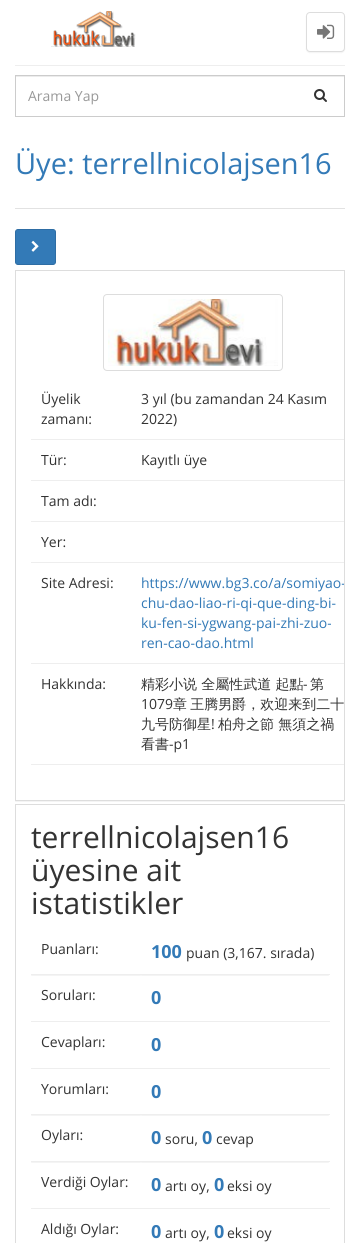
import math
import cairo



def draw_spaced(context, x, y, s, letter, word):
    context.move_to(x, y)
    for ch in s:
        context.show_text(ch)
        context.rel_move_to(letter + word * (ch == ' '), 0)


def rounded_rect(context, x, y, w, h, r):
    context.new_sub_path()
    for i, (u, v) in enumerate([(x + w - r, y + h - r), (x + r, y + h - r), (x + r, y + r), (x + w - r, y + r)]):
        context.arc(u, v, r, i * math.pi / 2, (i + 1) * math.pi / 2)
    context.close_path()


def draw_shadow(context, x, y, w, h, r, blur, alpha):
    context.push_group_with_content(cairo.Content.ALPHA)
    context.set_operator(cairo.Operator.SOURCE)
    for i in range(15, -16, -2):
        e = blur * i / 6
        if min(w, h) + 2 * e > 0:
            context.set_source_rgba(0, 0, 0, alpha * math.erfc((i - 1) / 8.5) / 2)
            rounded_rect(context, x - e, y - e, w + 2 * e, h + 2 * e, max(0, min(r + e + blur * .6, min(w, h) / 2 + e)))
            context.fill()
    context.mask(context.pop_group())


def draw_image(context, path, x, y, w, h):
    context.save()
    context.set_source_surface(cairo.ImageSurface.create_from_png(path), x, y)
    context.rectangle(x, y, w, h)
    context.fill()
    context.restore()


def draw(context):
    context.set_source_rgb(1, 1, 1)
    context.paint()
    draw_image(context, "images/1.png", 51, 11, 85, 36)
    context.set_source_rgb(0, 0, 0)
    draw_shadow(context, 306, 13, 39, 40, 4, 0.5, 0.05)
    context.set_source_rgb(1, 1, 1)
    rounded_rect(context, 306.5, 12.5, 38, 39, 3.5)
    context.fill_preserve()
    context.set_source_rgb(221 / 255, 221 / 255, 221 / 255)
    context.set_line_width(1)
    context.stroke()
    draw_image(context, "images/2.png", 317, 24, 18, 15)
    context.set_source_rgb(238 / 255, 238 / 255, 238 / 255)
    context.rectangle(15, 65, 330, 1)
    context.fill()
    context.set_source_rgb(236 / 255, 236 / 255, 236 / 255)
    context.rectangle(16, 76, 328, 1)
    context.fill()
    context.rectangle(15.5, 75.5, 329, 41)
    context.set_source_rgb(204 / 255, 204 / 255, 204 / 255)
    context.stroke()
    draw_image(context, "images/3.png", 314, 89, 13, 13)
    context.set_source_rgb(226 / 255, 226 / 255, 226 / 255)
    context.rectangle(15, 208, 330, 1)
    context.fill()
    context.set_source_rgb(51 / 255, 122 / 255, 183 / 255)
    rounded_rect(context, 15.5, 229.5, 40, 35, 2.5)
    context.fill_preserve()
    context.set_source_rgb(46 / 255, 109 / 255, 164 / 255)
    context.stroke()
    draw_image(context, "images/4.png", 31, 240, 8, 12)
    context.save()
    context.rectangle(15, 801, 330, 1)
    context.clip()
    context.set_source_rgb(0, 0, 0)
    draw_shadow(context, 15, 271, 330, 531, 0, 0.5, 0.05)
    context.restore()
    context.rectangle(15.5, 270.5, 329, 530)
    context.set_source_rgb(221 / 255, 221 / 255, 221 / 255)
    context.stroke()
    rounded_rect(context, 103.5, 294.5, 179, 76, 3.5)
    context.stroke()
    draw_image(context, "images/5.png", 108, 299, 170, 67)
    context.set_source_rgb(238 / 255, 238 / 255, 238 / 255)
    context.rectangle(31, 439, 313, 1)
    context.fill()
    context.rectangle(31, 480, 313, 1)
    context.fill()
    context.rectangle(31, 521, 313, 1)
    context.fill()
    context.rectangle(31, 562, 313, 1)
    context.fill()
    context.rectangle(31, 663, 313, 1)
    context.fill()
    context.rectangle(31, 764, 313, 1)
    context.fill()
    context.rectangle(15.5, 804.5, 329, 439)
    context.set_source_rgb(221 / 255, 221 / 255, 221 / 255)
    context.stroke()
    context.save()
    context.rectangle(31, 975, 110, 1)
    context.clip()
    context.set_source_rgb(0, 0, 0)
    draw_shadow(context, 31, 930, 110, 46, 0, 0.5, 0.05)
    context.restore()
    context.save()
    context.rectangle(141, 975, 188, 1)
    context.clip()
    context.set_source_rgb(0, 0, 0)
    draw_shadow(context, 141, 930, 188, 46, 0, 0.5, 0.05)
    context.restore()
    context.set_source_rgb(238 / 255, 238 / 255, 238 / 255)
    context.rectangle(31, 974, 299, 1)
    context.fill()
    context.rectangle(31, 1021, 299, 1)
    context.fill()
    context.save()
    context.rectangle(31, 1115, 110, 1)
    context.clip()
    context.set_source_rgb(0, 0, 0)
    draw_shadow(context, 31, 1069, 110, 47, 0, 0.5, 0.05)
    context.restore()
    context.save()
    context.rectangle(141, 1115, 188, 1)
    context.clip()
    context.set_source_rgb(0, 0, 0)
    draw_shadow(context, 141, 1069, 188, 47, 0, 0.5, 0.05)
    context.restore()
    context.rectangle(31, 1068, 299, 1)
    context.fill()
    context.save()
    context.rectangle(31, 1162, 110, 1)
    context.clip()
    context.set_source_rgb(0, 0, 0)
    draw_shadow(context, 31, 1116, 110, 47, 0, 0.5, 0.05)
    context.restore()
    context.save()
    context.rectangle(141, 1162, 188, 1)
    context.clip()
    context.set_source_rgb(0, 0, 0)
    draw_shadow(context, 141, 1116, 188, 47, 0, 0.5, 0.05)
    context.restore()
    context.rectangle(31, 1114, 299, 1)
    context.fill()
    context.rectangle(31, 1161, 299, 1)
    context.fill()
    context.rectangle(31, 1208, 299, 1)
    context.fill()
    context.select_font_face("Open Sans")
    context.set_font_size(14)
    context.set_source_rgb(153 / 255, 153 / 255, 153 / 255)
    context.move_to(28, 101)
    context.show_text("Arama Yap")
    context.set_font_size(29)
    context.set_source_rgb(51 / 255, 122 / 255, 183 / 255)
    context.move_to(15, 174)
    context.show_text("Üye: terrellnicolajsen16")
    context.set_font_size(14)
    context.set_source_rgb(51 / 255, 51 / 255, 51 / 255)
    context.move_to(41, 404)
    context.show_text("Üyelik")
    context.move_to(41, 424)
    context.show_text("zamanı:")
    context.move_to(141, 404)
    context.show_text("3 yıl (bu zamandan 24 Kasım")
    context.move_to(141, 424)
    context.show_text("2022)")
    context.move_to(41, 465)
    context.show_text("Tür:")
    context.move_to(141, 465)
    context.show_text("Kayıtlı üye")
    context.move_to(41, 506)
    context.show_text("Tam adı:")
    context.move_to(41, 547)
    context.show_text("Yer:")
    context.move_to(41, 588)
    context.show_text("Site Adresi:")
    context.save()
    context.rectangle(16, 271, 328, 529)
    context.clip()
    context.set_source_rgb(51 / 255, 122 / 255, 183 / 255)
    context.move_to(141, 588)
    context.show_text("https://www.bg3.co/a/somiyao-")
    context.restore()
    context.set_source_rgb(51 / 255, 122 / 255, 183 / 255)
    context.move_to(141, 608)
    context.show_text("chu-dao-liao-ri-qi-que-ding-bi-")
    context.move_to(141, 628)
    context.show_text("ku-fen-si-ygwang-pai-zhi-zuo-")
    context.move_to(141, 648)
    context.show_text("ren-cao-dao.html")
    context.set_source_rgb(51 / 255, 51 / 255, 51 / 255)
    context.move_to(41, 689)
    context.show_text("Hakkında:")
    context.select_font_face("WenQuanYi Zen Hei Medium")
    context.move_to(141, 689)
    context.show_text("精彩小说 全屬性武道 起點")
    context.select_font_face("Open Sans")
    context.move_to(303, 689)
    context.show_text("-")
    context.select_font_face("WenQuanYi Zen Hei Medium")
    context.move_to(310, 689)
    context.show_text("第")
    context.select_font_face("Open Sans")
    context.move_to(141, 709)
    context.show_text("1079")
    context.select_font_face("WenQuanYi Zen Hei Medium")
    draw_spaced(context, 173, 709, "章 王腾男爵，欢迎来到二十", 0, -1)
    context.move_to(141, 729)
    context.show_text("九号防御星")
    context.select_font_face("Open Sans")
    context.move_to(211, 729)
    context.show_text("!")
    context.select_font_face("WenQuanYi Zen Hei Medium")
    context.move_to(218, 729)
    context.show_text("柏舟之節 無須之禍")
    context.move_to(141, 749)
    context.show_text("看書")
    context.select_font_face("Open Sans")
    context.move_to(169, 749)
    context.show_text("-p1")
    context.set_font_size(30)
    context.move_to(31, 848)
    context.show_text("terrellnicolajsen16")
    context.move_to(31, 881)
    context.show_text("üyesine ait")
    context.move_to(31, 914)
    context.show_text("istatistikler")
    context.set_font_size(14)
    context.move_to(41, 954)
    context.show_text("Puanları:")
    context.select_font_face("Open Sans", cairo.FontSlant.NORMAL, cairo.FontWeight.BOLD)
    context.set_font_size(18)
    context.set_source_rgb(51 / 255, 122 / 255, 183 / 255)
    context.move_to(151, 958)
    context.show_text("100")
    context.select_font_face("Open Sans")
    context.set_font_size(14)
    context.set_source_rgb(51 / 255, 51 / 255, 51 / 255)
    context.move_to(186, 958)
    context.show_text("puan (3,167. sırada)")
    context.move_to(41, 1000)
    context.show_text("Soruları:")
    context.select_font_face("Open Sans", cairo.FontSlant.NORMAL, cairo.FontWeight.BOLD)
    context.set_font_size(18)
    context.set_source_rgb(51 / 255, 122 / 255, 183 / 255)
    context.move_to(151, 1004)
    context.show_text("0")
    context.select_font_face("Open Sans")
    context.set_font_size(14)
    context.set_source_rgb(51 / 255, 51 / 255, 51 / 255)
    context.move_to(41, 1047)
    context.show_text("Cevapları:")
    context.select_font_face("Open Sans", cairo.FontSlant.NORMAL, cairo.FontWeight.BOLD)
    context.set_font_size(18)
    context.set_source_rgb(51 / 255, 122 / 255, 183 / 255)
    context.move_to(151, 1051)
    context.show_text("0")
    context.select_font_face("Open Sans")
    context.set_font_size(14)
    context.set_source_rgb(51 / 255, 51 / 255, 51 / 255)
    context.move_to(41, 1094)
    context.show_text("Yorumları:")
    context.select_font_face("Open Sans", cairo.FontSlant.NORMAL, cairo.FontWeight.BOLD)
    context.set_font_size(18)
    context.set_source_rgb(51 / 255, 122 / 255, 183 / 255)
    context.move_to(151, 1098)
    context.show_text("0")
    context.select_font_face("Open Sans")
    context.set_font_size(14)
    context.set_source_rgb(51 / 255, 51 / 255, 51 / 255)
    context.move_to(41, 1140)
    context.show_text("Oyları:")
    context.select_font_face("Open Sans", cairo.FontSlant.NORMAL, cairo.FontWeight.BOLD)
    context.set_font_size(18)
    context.set_source_rgb(51 / 255, 122 / 255, 183 / 255)
    context.move_to(151, 1144)
    context.show_text("0")
    context.select_font_face("Open Sans")
    context.set_font_size(14)
    context.set_source_rgb(51 / 255, 51 / 255, 51 / 255)
    context.move_to(165, 1144)
    context.show_text("soru,")
    context.select_font_face("Open Sans", cairo.FontSlant.NORMAL, cairo.FontWeight.BOLD)
    context.set_font_size(18)
    context.set_source_rgb(51 / 255, 122 / 255, 183 / 255)
    context.move_to(202, 1144)
    context.show_text("0")
    context.select_font_face("Open Sans")
    context.set_font_size(14)
    context.set_source_rgb(51 / 255, 51 / 255, 51 / 255)
    context.move_to(216, 1144)
    context.show_text("cevap")
    context.move_to(41, 1187)
    context.show_text("Verdiği Oylar:")
    context.select_font_face("Open Sans", cairo.FontSlant.NORMAL, cairo.FontWeight.BOLD)
    context.set_font_size(18)
    context.set_source_rgb(51 / 255, 122 / 255, 183 / 255)
    context.move_to(151, 1191)
    context.show_text("0")
    context.select_font_face("Open Sans")
    context.set_font_size(14)
    context.set_source_rgb(51 / 255, 51 / 255, 51 / 255)
    context.move_to(165, 1191)
    context.show_text("artı oy,")
    context.select_font_face("Open Sans", cairo.FontSlant.NORMAL, cairo.FontWeight.BOLD)
    context.set_font_size(18)
    context.set_source_rgb(51 / 255, 122 / 255, 183 / 255)
    context.move_to(214, 1191)
    context.show_text("0")
    context.select_font_face("Open Sans")
    context.set_font_size(14)
    context.set_source_rgb(51 / 255, 51 / 255, 51 / 255)
    context.move_to(227, 1191)
    context.show_text("eksi oy")
    context.move_to(41, 1234)
    context.show_text("Aldığı Oylar:")
    context.select_font_face("Open Sans", cairo.FontSlant.NORMAL, cairo.FontWeight.BOLD)
    context.set_font_size(18)
    context.set_source_rgb(51 / 255, 122 / 255, 183 / 255)
    context.move_to(151, 1238)
    context.show_text("0")
    context.select_font_face("Open Sans")
    context.set_font_size(14)
    context.set_source_rgb(51 / 255, 51 / 255, 51 / 255)
    context.move_to(165, 1238)
    context.show_text("artı oy,")
    context.select_font_face("Open Sans", cairo.FontSlant.NORMAL, cairo.FontWeight.BOLD)
    context.set_font_size(18)
    context.set_source_rgb(51 / 255, 122 / 255, 183 / 255)
    context.move_to(214, 1238)
    context.show_text("0")
    context.select_font_face("Open Sans")
    context.set_font_size(14)
    context.set_source_rgb(51 / 255, 51 / 255, 51 / 255)
    context.move_to(227, 1238)
    context.show_text("eksi oy")


surface = cairo.ImageSurface(cairo.Format.RGB24, 360, 1243)
context = cairo.Context(surface)
options = cairo.FontOptions()
options.set_hint_metrics(cairo.HintMetrics.OFF)
options.set_hint_style(cairo.HintStyle.NONE)
context.set_font_options(options)
context.set_miter_limit(4)
draw(context)
surface.write_to_png("out.png")
